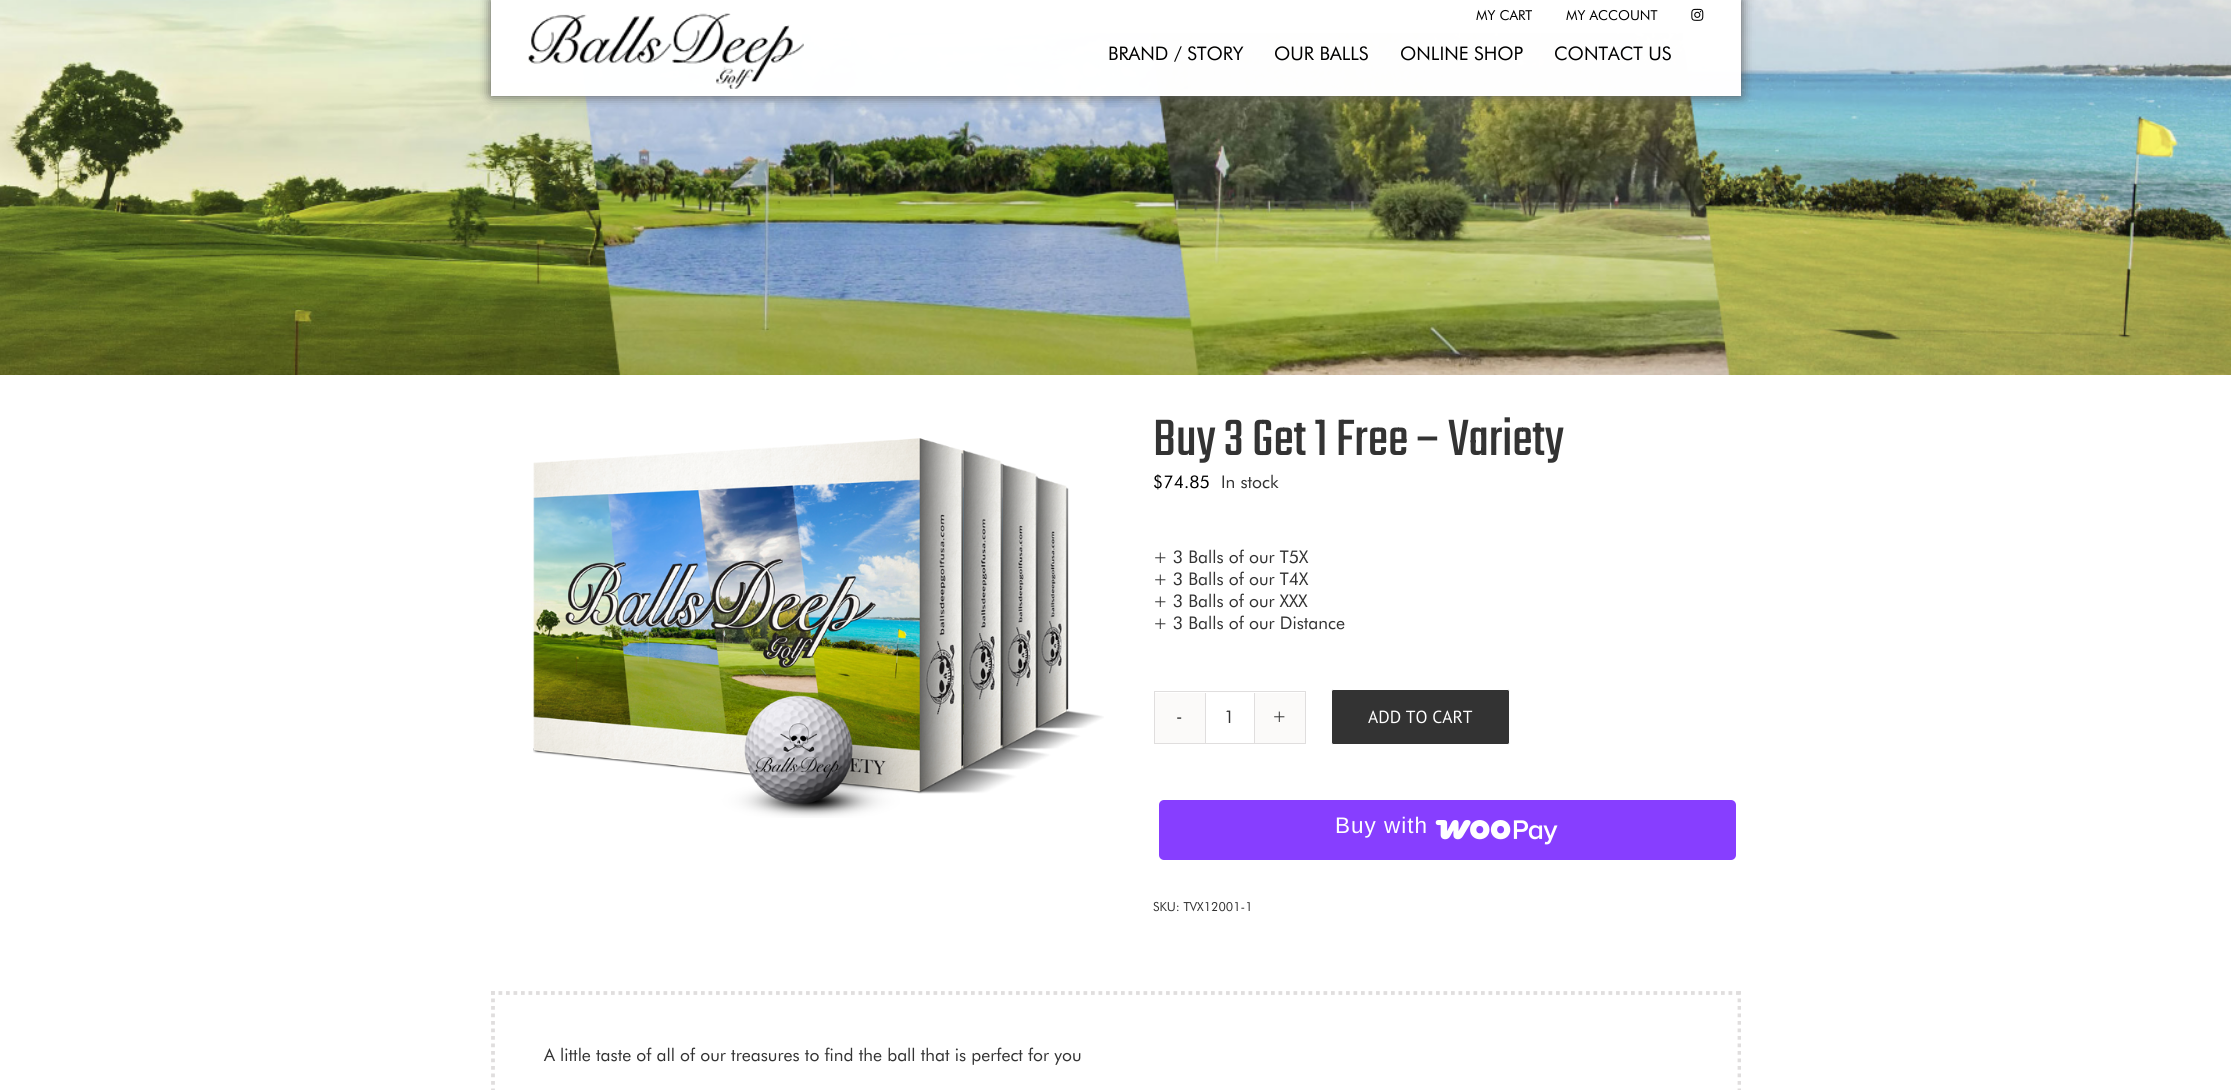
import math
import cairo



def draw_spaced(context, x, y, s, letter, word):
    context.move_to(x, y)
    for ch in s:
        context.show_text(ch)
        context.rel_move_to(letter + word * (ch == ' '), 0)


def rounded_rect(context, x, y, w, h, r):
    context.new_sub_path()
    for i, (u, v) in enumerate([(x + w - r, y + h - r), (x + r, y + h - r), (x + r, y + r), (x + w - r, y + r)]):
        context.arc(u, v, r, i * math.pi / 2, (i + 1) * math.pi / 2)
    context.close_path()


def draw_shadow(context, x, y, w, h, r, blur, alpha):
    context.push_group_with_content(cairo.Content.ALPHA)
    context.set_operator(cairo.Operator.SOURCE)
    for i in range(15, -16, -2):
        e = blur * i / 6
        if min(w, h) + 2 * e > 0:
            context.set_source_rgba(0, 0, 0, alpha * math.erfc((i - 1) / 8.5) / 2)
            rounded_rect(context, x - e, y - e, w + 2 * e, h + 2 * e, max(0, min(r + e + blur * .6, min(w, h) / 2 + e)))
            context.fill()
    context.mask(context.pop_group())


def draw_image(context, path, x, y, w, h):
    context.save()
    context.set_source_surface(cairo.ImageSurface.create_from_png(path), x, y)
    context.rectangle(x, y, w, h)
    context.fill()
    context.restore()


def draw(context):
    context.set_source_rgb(1, 1, 1)
    context.paint()
    draw_image(context, "images/1.png", 0, 0, 2231, 375)
    context.save()
    context.set_fill_rule(cairo.FillRule.EVEN_ODD)
    context.new_path()
    context.move_to(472, 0)
    context.line_to(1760, 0)
    context.line_to(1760, 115)
    context.line_to(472, 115)
    context.close_path()
    context.move_to(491, 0)
    context.line_to(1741, 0)
    context.line_to(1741, 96)
    context.line_to(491, 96)
    context.close_path()
    context.clip()
    context.set_source_rgb(85 / 255, 85 / 255, 85 / 255)
    draw_shadow(context, 491, 0, 1250, 96, 0, 6, 1)
    context.restore()
    context.set_source_rgb(1, 1, 1)
    context.rectangle(491, 0, 1250, 33)
    context.fill()
    draw_image(context, "images/2.png", 1691, 8, 13, 13)
    context.set_source_rgba(1, 1, 1, 0.99)
    context.rectangle(491, 33, 1250, 62)
    context.fill()
    context.set_source_rgb(1, 1, 1)
    context.rectangle(491, 95, 1250, 1)
    context.fill()
    draw_image(context, "images/3.png", 528, 13, 276, 76)
    draw_image(context, "images/4.png", 533, 438, 571, 380)
    context.rectangle(1154.5, 691.5, 151, 52)
    context.set_source_rgb(224 / 255, 222 / 255, 222 / 255)
    context.set_line_width(1)
    context.stroke()
    context.set_source_rgb(251 / 255, 250 / 255, 249 / 255)
    context.rectangle(1155, 693, 50, 50)
    context.fill()
    context.set_source_rgb(224 / 255, 222 / 255, 222 / 255)
    context.rectangle(1254, 693, 1, 50)
    context.fill()
    context.rectangle(1205, 693, 1, 50)
    context.fill()
    context.set_source_rgb(251 / 255, 250 / 255, 249 / 255)
    context.rectangle(1255, 693, 50, 50)
    context.fill()
    context.set_source_rgb(51 / 255, 51 / 255, 51 / 255)
    rounded_rect(context, 1331.5, 689.5, 178, 55, 2)
    context.fill_preserve()
    context.set_source_rgb(1, 1, 1)
    context.stroke()
    context.set_source_rgb(135 / 255, 62 / 255, 1)
    rounded_rect(context, 1159, 800, 577, 60, 5)
    context.fill()
    draw_image(context, "images/5.png", 1435, 820, 123, 25)
    context.new_path()
    context.move_to(491, 993)
    context.line_to(1741, 993)
    context.set_source_rgb(224 / 255, 222 / 255, 222 / 255)
    context.set_line_width(3.8)
    context.set_dash([3.75, 3.75])
    context.stroke()
    context.save()
    context.rectangle(491, 915, 1250, 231)
    context.clip()
    context.new_path()
    context.move_to(1739.5, 991)
    context.line_to(1739.5, 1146)
    context.stroke()
    context.restore()
    context.new_path()
    context.move_to(493, 991)
    context.line_to(493, 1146)
    context.stroke()
    context.select_font_face("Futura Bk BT")
    context.set_font_size(13.75)
    context.set_source_rgb(0, 0, 0)
    context.move_to(1476, 20)
    context.show_text("MY CART")
    context.move_to(1566, 20)
    context.show_text("MY ACCOUNT")
    context.set_font_size(18.75)
    context.move_to(1108, 60)
    context.show_text("BRAND / STORY")
    context.move_to(1274, 60)
    context.show_text("OUR BALLS")
    context.move_to(1400, 60)
    context.show_text("ONLINE SHOP")
    context.move_to(1554, 60)
    context.show_text("CONTACT US")
    context.select_font_face("Teko Light")
    context.set_font_size(56.25)
    context.set_source_rgb(51 / 255, 51 / 255, 51 / 255)
    context.move_to(1153, 455)
    context.show_text("Buy 3 Get 1 Free – Variety")
    context.select_font_face("Futura Bk BT")
    context.set_font_size(17.5)
    context.set_source_rgb(0, 0, 0)
    context.move_to(1153, 488)
    context.show_text("$74.85")
    context.set_source_rgb(51 / 255, 51 / 255, 51 / 255)
    context.move_to(1221, 488)
    context.show_text("In stock")
    context.move_to(1153, 563)
    context.show_text("+ 3 Balls of our T5X")
    context.move_to(1153, 585)
    context.show_text("+ 3 Balls of our T4X")
    context.move_to(1153, 607)
    context.show_text("+ 3 Balls of our XXX")
    context.move_to(1153, 629)
    context.show_text("+ 3 Balls of our Distance")
    context.move_to(1176, 722)
    context.show_text("-")
    context.move_to(1224, 723)
    context.show_text("1")
    context.move_to(1272, 722)
    context.show_text("+")
    context.select_font_face("PT Sans")
    context.set_source_rgb(1, 1, 1)
    context.move_to(1368, 723)
    context.show_text("ADD TO CART")
    context.select_font_face("Liberation Sans")
    context.set_font_size(22.5)
    draw_spaced(context, 1335, 833, "Buy with", 1, 0)
    context.select_font_face("Futura Bk BT")
    context.set_font_size(12.5)
    context.set_source_rgb(51 / 255, 51 / 255, 51 / 255)
    context.move_to(1153, 911)
    context.show_text("SKU: TVX12001-1")
    context.set_font_size(17.5)
    context.move_to(544, 1061)
    context.show_text("A little taste of all of our treasures to find the ball that is perfect for you")


surface = cairo.ImageSurface(cairo.Format.RGB24, 2231, 1090)
context = cairo.Context(surface)
options = cairo.FontOptions()
options.set_hint_metrics(cairo.HintMetrics.OFF)
options.set_hint_style(cairo.HintStyle.NONE)
context.set_font_options(options)
context.set_miter_limit(4)
draw(context)
surface.write_to_png("out.png")
